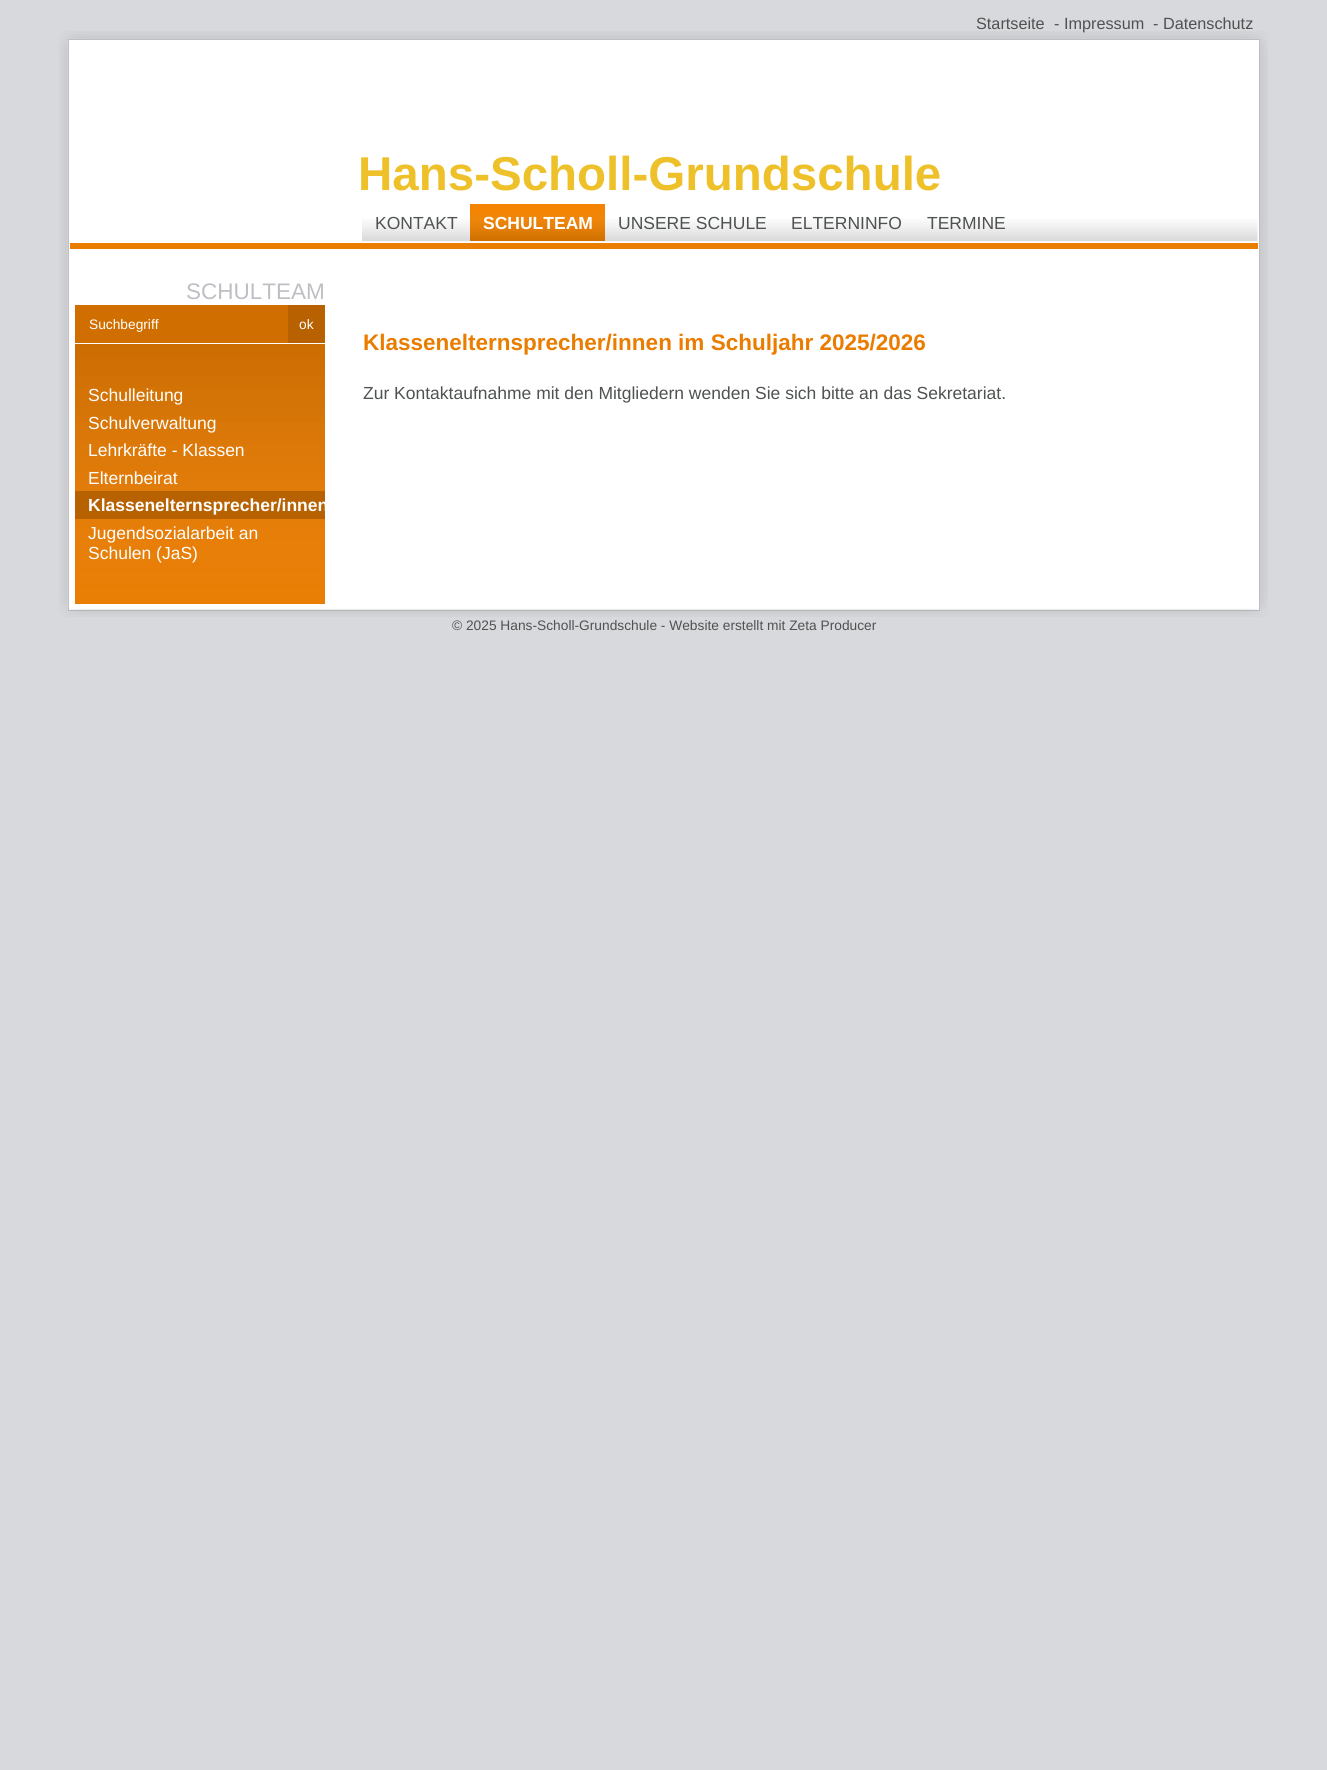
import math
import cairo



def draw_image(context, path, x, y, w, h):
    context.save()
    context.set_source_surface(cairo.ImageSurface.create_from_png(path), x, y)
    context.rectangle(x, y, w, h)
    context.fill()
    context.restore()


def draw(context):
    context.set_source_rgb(216 / 255, 217 / 255, 220 / 255)
    context.paint()
    context.set_source_rgb(1, 1, 1)
    context.rectangle(68.5, 39.5, 1191, 571)
    context.fill_preserve()
    context.set_source_rgb(189 / 255, 191 / 255, 196 / 255)
    context.set_line_width(1)
    context.stroke()
    draw_image(context, "images/1.png", 59, 31, 1209, 24)
    draw_image(context, "images/2.png", 59, 55, 1209, 538)
    draw_image(context, "images/3.png", 59, 592, 1209, 25)
    context.set_source_rgb(234 / 255, 124 / 255, 0)
    context.rectangle(70, 243, 1188, 6)
    context.fill()
    draw_image(context, "images/4.png", 361, 219, 897, 23)
    context.set_source_rgb(1, 1, 1)
    context.rectangle(361, 219, 1, 22)
    context.fill()
    context.set_source_rgb(243 / 255, 131 / 255, 0)
    context.rectangle(470, 204, 135, 37)
    context.fill()
    draw_image(context, "images/5.png", 470, 212, 135, 29)
    context.set_source_rgb(234 / 255, 124 / 255, 0)
    context.rectangle(75, 344, 250, 260)
    context.fill()
    draw_image(context, "images/6.png", 75, 344, 250, 259)
    context.set_source_rgb(209 / 255, 110 / 255, 0)
    context.rectangle(75, 305, 213, 38)
    context.fill()
    context.set_source_rgb(183 / 255, 97 / 255, 0)
    context.rectangle(288, 305, 37, 38)
    context.fill()
    context.rectangle(75, 491, 250, 28)
    context.fill()
    context.select_font_face("Liberation Sans")
    context.set_font_size(16.25)
    context.set_source_rgb(78 / 255, 82 / 255, 81 / 255)
    context.move_to(976, 29)
    context.show_text("Startseite")
    context.move_to(1054, 29)
    context.show_text("- Impressum")
    context.move_to(1153, 29)
    context.show_text("- Datenschutz")
    context.select_font_face("Liberation Sans", cairo.FontSlant.NORMAL, cairo.FontWeight.BOLD)
    context.set_font_size(47.5)
    context.set_source_rgb(238 / 255, 193 / 255, 42 / 255)
    context.move_to(358, 190)
    context.show_text("Hans-Scholl-Grundschule")
    context.select_font_face("Liberation Sans")
    context.set_font_size(17.5)
    context.set_source_rgb(78 / 255, 82 / 255, 81 / 255)
    context.move_to(375, 229)
    context.show_text("KONTAKT")
    context.select_font_face("Liberation Sans", cairo.FontSlant.NORMAL, cairo.FontWeight.BOLD)
    context.set_source_rgb(1, 1, 1)
    context.move_to(483, 229)
    context.show_text("SCHULTEAM")
    context.select_font_face("Liberation Sans")
    context.set_source_rgb(78 / 255, 82 / 255, 81 / 255)
    context.move_to(618, 229)
    context.show_text("UNSERE SCHULE")
    context.move_to(791, 229)
    context.show_text("ELTERNINFO")
    context.move_to(927, 229)
    context.show_text("TERMINE")
    context.set_font_size(22.5)
    context.set_source_rgb(189 / 255, 191 / 255, 196 / 255)
    context.move_to(186, 299)
    context.show_text("SCHULTEAM")
    context.set_font_size(13.75)
    context.set_source_rgb(1, 1, 1)
    context.move_to(89, 329)
    context.show_text("Suchbegriff")
    context.move_to(299, 329)
    context.show_text("ok")
    context.set_font_size(17.5)
    context.move_to(88, 401)
    context.show_text("Schulleitung")
    context.move_to(88, 429)
    context.show_text("Schulverwaltung")
    context.move_to(88, 456)
    context.show_text("Lehrkräfte - Klassen")
    context.move_to(88, 484)
    context.show_text("Elternbeirat")
    context.select_font_face("Liberation Sans", cairo.FontSlant.NORMAL, cairo.FontWeight.BOLD)
    context.move_to(88, 511)
    context.show_text("Klassenelternsprecher/innen")
    context.select_font_face("Liberation Sans")
    context.move_to(88, 539)
    context.show_text("Jugendsozialarbeit an")
    context.move_to(88, 559)
    context.show_text("Schulen (JaS)")
    context.select_font_face("Liberation Sans", cairo.FontSlant.NORMAL, cairo.FontWeight.BOLD)
    context.set_font_size(22.5)
    context.set_source_rgb(234 / 255, 124 / 255, 0)
    context.move_to(363, 350)
    context.show_text("Klassenelternsprecher/innen im Schuljahr 2025/2026")
    context.select_font_face("Liberation Sans")
    context.set_font_size(17.5)
    context.set_source_rgb(78 / 255, 82 / 255, 81 / 255)
    context.move_to(363, 399)
    context.show_text("Zur Kontaktaufnahme mit den Mitgliedern wenden Sie sich bitte an das Sekretariat.")
    context.set_font_size(13.75)
    context.move_to(452, 630)
    context.show_text("© 2025 Hans-Scholl-Grundschule - Website erstellt mit Zeta Producer")


surface = cairo.ImageSurface(cairo.Format.RGB24, 1327, 1770)
context = cairo.Context(surface)
options = cairo.FontOptions()
options.set_hint_metrics(cairo.HintMetrics.OFF)
options.set_hint_style(cairo.HintStyle.NONE)
context.set_font_options(options)
context.set_miter_limit(4)
draw(context)
surface.write_to_png("out.png")
